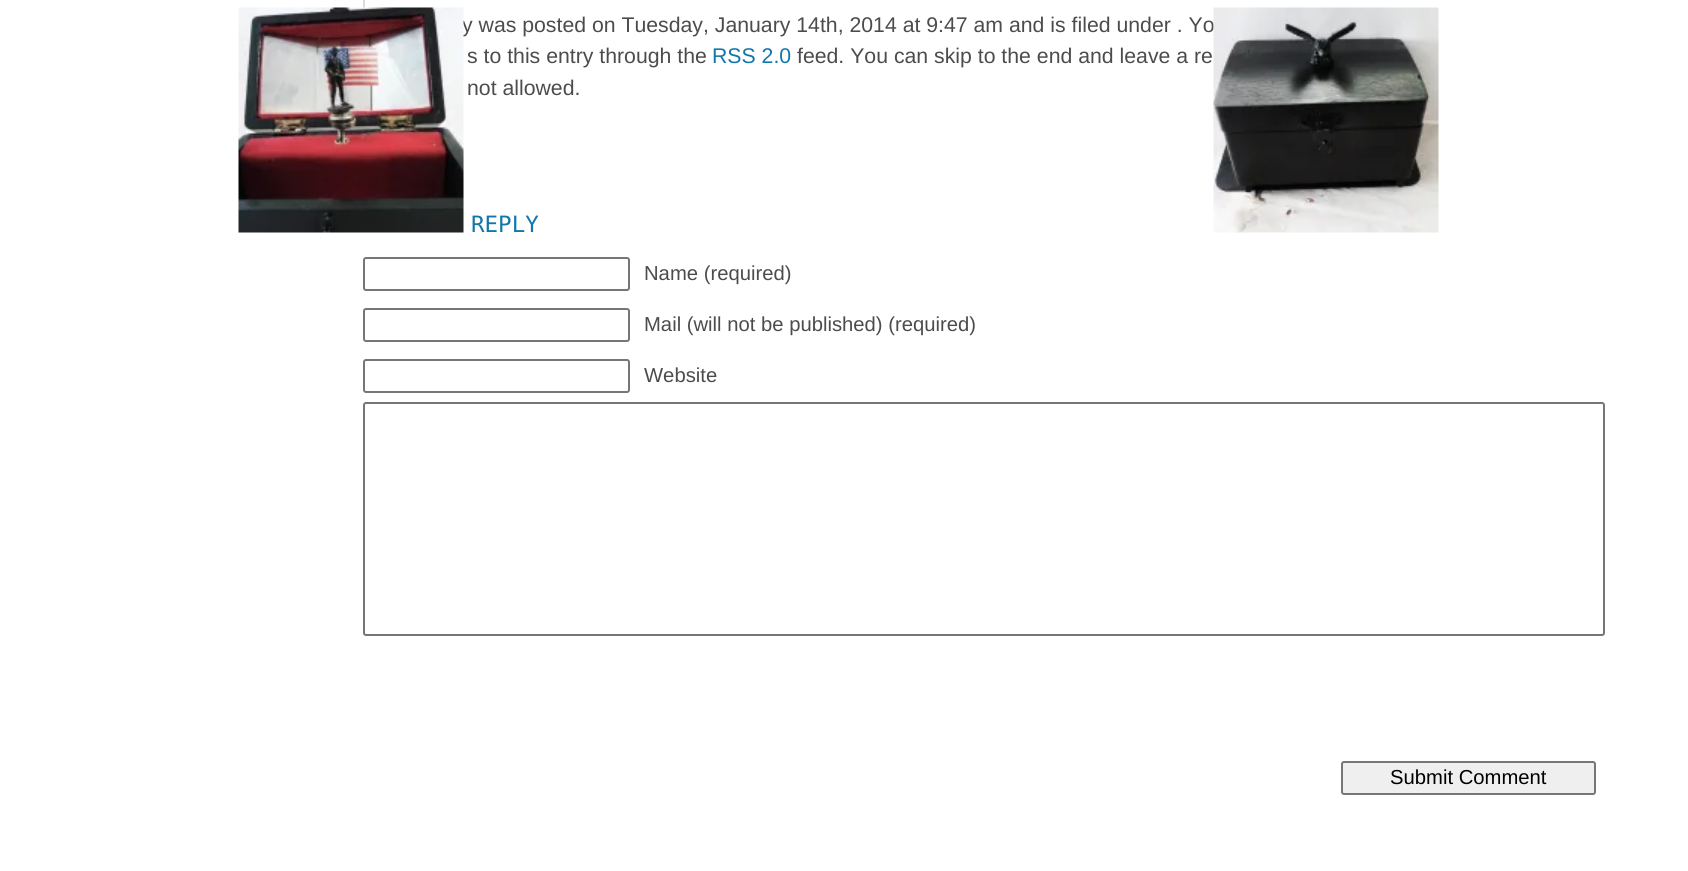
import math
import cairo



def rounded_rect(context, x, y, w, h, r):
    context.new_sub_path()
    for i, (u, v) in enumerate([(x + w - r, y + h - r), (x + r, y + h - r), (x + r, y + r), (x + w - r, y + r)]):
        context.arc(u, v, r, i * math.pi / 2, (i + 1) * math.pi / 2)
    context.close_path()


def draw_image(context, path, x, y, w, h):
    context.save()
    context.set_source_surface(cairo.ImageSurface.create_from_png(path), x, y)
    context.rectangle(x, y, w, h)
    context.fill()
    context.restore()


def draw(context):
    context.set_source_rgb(1, 1, 1)
    context.paint()
    context.set_source_rgb(221 / 255, 221 / 255, 221 / 255)
    context.rectangle(363, 0, 2, 8)
    context.fill()
    rounded_rect(context, 364, 258, 265, 32, 2)
    context.set_source_rgb(118 / 255, 118 / 255, 118 / 255)
    context.stroke()
    rounded_rect(context, 364, 309, 265, 32, 2)
    context.stroke()
    rounded_rect(context, 364, 360, 265, 32, 2)
    context.stroke()
    rounded_rect(context, 364, 403, 1240, 232, 2)
    context.stroke()
    context.set_source_rgb(239 / 255, 239 / 255, 239 / 255)
    rounded_rect(context, 1342, 762, 253, 32, 2)
    context.fill_preserve()
    context.set_source_rgb(118 / 255, 118 / 255, 118 / 255)
    context.stroke()
    context.select_font_face("Liberation Sans")
    context.set_font_size(21.25)
    context.set_source_rgb(77 / 255, 76 / 255, 76 / 255)
    context.move_to(462, 32)
    context.show_text("y was posted on Tuesday, January 14th, 2014 at 9:47 am and is filed under . Yo")
    draw_image(context, "images/2.png", 1213, 7, 226, 226)
    draw_image(context, "images/1.png", 238, 7, 226, 226)
    context.move_to(467, 63)
    context.show_text("s to this entry through the")
    context.set_source_rgb(17 / 255, 119 / 255, 170 / 255)
    context.move_to(712, 63)
    context.show_text("RSS 2.0")
    context.set_source_rgb(77 / 255, 76 / 255, 76 / 255)
    context.move_to(797, 63)
    context.show_text("feed. You can skip to the end and leave a re")
    context.move_to(467, 95)
    context.show_text("not allowed.")
    context.select_font_face("DejaVu Sans Mono")
    context.set_font_size(22.5)
    context.set_source_rgb(17 / 255, 119 / 255, 170 / 255)
    context.move_to(471, 232)
    context.show_text("REPLY")
    context.select_font_face("Liberation Sans")
    context.set_font_size(20.25)
    context.set_source_rgb(77 / 255, 76 / 255, 76 / 255)
    context.move_to(644, 280)
    context.show_text("Name (required)")
    context.move_to(644, 331)
    context.show_text("Mail (will not be published) (required)")
    context.move_to(644, 382)
    context.show_text("Website")
    context.set_source_rgb(0, 0, 0)
    context.move_to(1390, 784)
    context.show_text("Submit Comment")


surface = cairo.ImageSurface(cairo.Format.RGB24, 1688, 871)
context = cairo.Context(surface)
options = cairo.FontOptions()
options.set_hint_metrics(cairo.HintMetrics.OFF)
options.set_hint_style(cairo.HintStyle.NONE)
context.set_font_options(options)
context.set_miter_limit(4)
draw(context)
surface.write_to_png("out.png")
